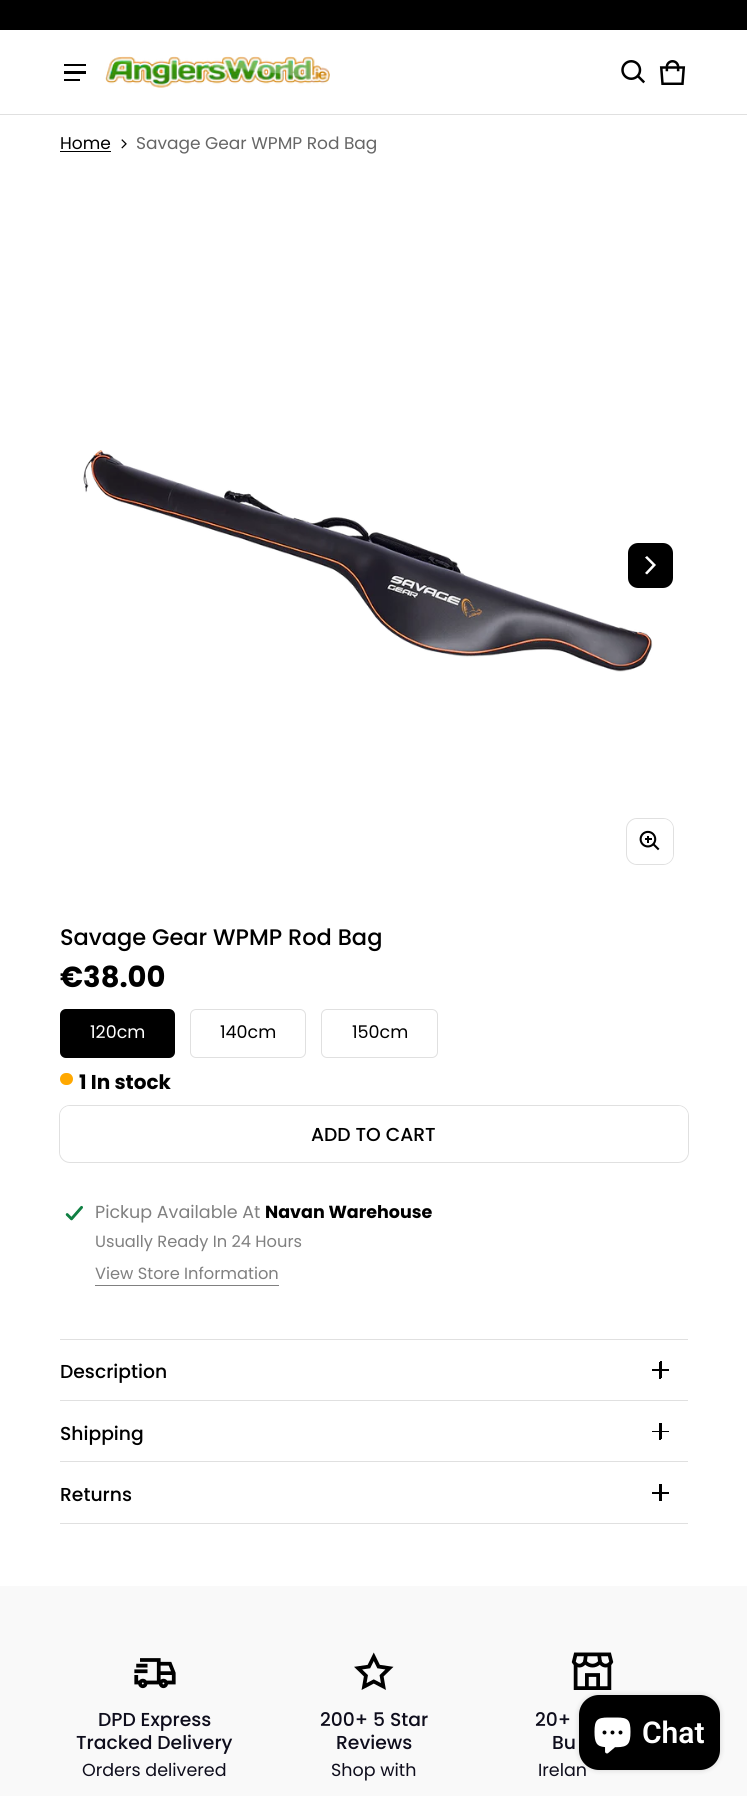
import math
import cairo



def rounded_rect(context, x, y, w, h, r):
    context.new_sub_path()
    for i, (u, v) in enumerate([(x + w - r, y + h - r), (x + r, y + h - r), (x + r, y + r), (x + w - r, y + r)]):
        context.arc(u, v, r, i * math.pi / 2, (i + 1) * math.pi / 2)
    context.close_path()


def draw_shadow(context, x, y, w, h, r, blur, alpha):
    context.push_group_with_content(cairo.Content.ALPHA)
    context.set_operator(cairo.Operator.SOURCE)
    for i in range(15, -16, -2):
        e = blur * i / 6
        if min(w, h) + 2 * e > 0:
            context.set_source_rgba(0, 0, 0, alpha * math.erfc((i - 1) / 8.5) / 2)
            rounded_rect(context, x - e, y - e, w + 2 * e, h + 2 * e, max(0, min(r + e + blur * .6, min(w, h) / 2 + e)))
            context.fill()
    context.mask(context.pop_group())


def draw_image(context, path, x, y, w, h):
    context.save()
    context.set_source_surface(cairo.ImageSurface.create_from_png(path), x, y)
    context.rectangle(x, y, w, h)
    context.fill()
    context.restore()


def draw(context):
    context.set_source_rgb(1, 1, 1)
    context.paint()
    context.set_source_rgb(0, 0, 0)
    context.rectangle(0, 0, 747, 30)
    context.fill()
    context.set_source_rgb(224 / 255, 224 / 255, 224 / 255)
    context.rectangle(0, 114, 747, 1)
    context.fill()
    context.set_source_rgb(0, 0, 0)
    context.rectangle(64, 64, 22, 2)
    context.fill()
    context.rectangle(64, 71, 22, 3)
    context.fill()
    context.rectangle(64, 79, 16, 2)
    context.fill()
    draw_image(context, "images/1.png", 105, 56, 225, 32)
    draw_image(context, "images/2.png", 621, 60, 24, 24)
    draw_image(context, "images/3.png", 659, 60, 27, 25)
    context.rectangle(60, 151, 51, 1)
    context.fill()
    draw_image(context, "images/4.png", 121, 139, 6, 10)
    draw_image(context, "images/5.png", 83, 450, 570, 222)
    rounded_rect(context, 626.5, 818.5, 47, 46, 10.5)
    context.set_source_rgb(224 / 255, 224 / 255, 224 / 255)
    context.set_line_width(1)
    context.stroke()
    context.set_source_rgb(1, 1, 1)
    rounded_rect(context, 628, 819, 45, 45, 10)
    context.fill()
    draw_image(context, "images/6.png", 639, 830, 21, 21)
    context.set_source_rgb(0, 0, 0)
    rounded_rect(context, 628, 543, 45, 45, 10)
    context.fill()
    context.set_source_rgb(1, 1, 1)
    context.set_fill_rule(cairo.FillRule.EVEN_ODD)
    context.new_path()
    context.move_to(652.5, 565)
    context.line_to(645, 557.5)
    context.line_to(647, 556)
    context.line_to(656, 565)
    context.line_to(647, 574.5)
    context.line_to(645, 573)
    context.close_path()
    context.fill()
    context.set_source_rgb(0, 0, 0)
    rounded_rect(context, 60, 1009, 115, 49, 6)
    context.fill()
    rounded_rect(context, 60.5, 1009.5, 114, 48, 5.5)
    context.set_source_rgba(0, 0, 0, 0.12)
    context.stroke()
    rounded_rect(context, 190.5, 1009.5, 115, 48, 5.5)
    context.set_source_rgb(224 / 255, 224 / 255, 224 / 255)
    context.stroke()
    rounded_rect(context, 321.5, 1009.5, 116, 48, 5.5)
    context.stroke()
    context.set_source_rgb(1, 168 / 255, 0)
    rounded_rect(context, 60, 1073, 13, 12, 6)
    context.fill()
    rounded_rect(context, 59.5, 1105.5, 629, 57, 10.5)
    context.set_source_rgb(224 / 255, 224 / 255, 224 / 255)
    context.stroke()
    context.set_source_rgb(1, 1, 1)
    rounded_rect(context, 60, 1106, 628, 55, 10)
    context.fill()
    draw_image(context, "images/7.png", 65, 1205, 18, 16)
    context.set_source_rgb(128 / 255, 128 / 255, 128 / 255)
    context.rectangle(95, 1285, 184, 1)
    context.fill()
    context.set_source_rgb(224 / 255, 224 / 255, 224 / 255)
    context.rectangle(60, 1339, 628, 1)
    context.fill()
    context.rectangle(60, 1400, 628, 1)
    context.fill()
    context.set_source_rgb(0, 0, 0)
    context.rectangle(652, 1369, 17, 2)
    context.fill()
    context.rectangle(659, 1362, 2, 17)
    context.fill()
    context.rectangle(660, 1361, 2, 17)
    context.fill()
    context.set_source_rgb(224 / 255, 224 / 255, 224 / 255)
    context.rectangle(60, 1461, 628, 1)
    context.fill()
    context.set_source_rgb(0, 0, 0)
    context.rectangle(652, 1431, 17, 1)
    context.fill()
    context.rectangle(659, 1423, 2, 17)
    context.fill()
    context.rectangle(661, 1423, 1, 16)
    context.fill()
    context.set_source_rgb(224 / 255, 224 / 255, 224 / 255)
    context.rectangle(60, 1523, 628, 1)
    context.fill()
    context.set_source_rgb(0, 0, 0)
    context.rectangle(652, 1492, 17, 2)
    context.fill()
    context.rectangle(659, 1484, 3, 17)
    context.fill()
    context.set_source_rgb(249 / 255, 249 / 255, 249 / 255)
    context.rectangle(0, 1586, 747, 210)
    context.fill()
    draw_image(context, "images/8.png", 134, 1658, 42, 31)
    draw_image(context, "images/9.png", 354, 1652, 40, 38)
    draw_image(context, "images/10.png", 571, 1652, 43, 38)
    context.set_source_rgb(0, 0, 0)
    draw_shadow(context, 579, 1695, 141, 75, 20, 3, 0.15)
    context.select_font_face("Poppins")
    context.set_font_size(17)
    context.set_source_rgb(0, 0, 0)
    context.move_to(60, 149)
    context.show_text("Home")
    context.set_source_rgb(102 / 255, 102 / 255, 102 / 255)
    context.move_to(136, 149)
    context.show_text("Savage Gear WPMP Rod Bag")
    context.select_font_face("Poppins Medium")
    context.set_font_size(22.5)
    context.set_source_rgb(0, 0, 0)
    context.move_to(60, 945)
    context.show_text("Savage Gear WPMP Rod Bag")
    context.select_font_face("Poppins", cairo.FontSlant.NORMAL, cairo.FontWeight.BOLD)
    context.set_font_size(29)
    context.move_to(60, 987)
    context.show_text("€38.00")
    context.select_font_face("Poppins")
    context.set_font_size(17.5)
    context.set_source_rgb(1, 1, 1)
    context.move_to(90, 1038)
    context.show_text("120cm")
    context.set_source_rgb(0, 0, 0)
    context.move_to(220, 1038)
    context.show_text("140cm")
    context.move_to(352, 1038)
    context.show_text("150cm")
    context.select_font_face("Poppins", cairo.FontSlant.NORMAL, cairo.FontWeight.BOLD)
    context.set_font_size(20)
    context.move_to(79, 1089)
    context.show_text("1 In stock")
    context.select_font_face("Poppins Medium")
    context.set_font_size(18.75)
    context.move_to(311, 1141)
    context.show_text("ADD TO CART")
    context.select_font_face("Poppins")
    context.set_font_size(17.5)
    context.set_source_rgb(128 / 255, 128 / 255, 128 / 255)
    context.move_to(95, 1218)
    context.show_text("Pickup Available At")
    context.select_font_face("Poppins", cairo.FontSlant.NORMAL, cairo.FontWeight.BOLD)
    context.set_source_rgb(0, 0, 0)
    context.move_to(265, 1218)
    context.show_text("Navan Warehouse")
    context.select_font_face("Poppins")
    context.set_font_size(16.25)
    context.set_source_rgb(128 / 255, 128 / 255, 128 / 255)
    context.move_to(95, 1247)
    context.show_text("Usually Ready In 24 Hours")
    context.move_to(95, 1279)
    context.show_text("View Store Information")
    context.select_font_face("Poppins Medium")
    context.set_font_size(18.75)
    context.set_source_rgb(0, 0, 0)
    context.move_to(60, 1378)
    context.show_text("Description")
    context.move_to(60, 1440)
    context.show_text("Shipping")
    context.move_to(60, 1501)
    context.show_text("Returns")
    context.set_source_rgb(14 / 255, 13 / 255, 28 / 255)
    context.move_to(98, 1726)
    context.show_text("DPD Express")
    context.move_to(76, 1749)
    context.show_text("Tracked Delivery")
    context.select_font_face("Poppins")
    context.set_font_size(17.5)
    context.move_to(82, 1776)
    context.show_text("Orders delivered")
    context.select_font_face("Poppins Medium")
    context.set_font_size(18.75)
    context.move_to(320, 1726)
    context.show_text("200+ 5 Star")
    context.move_to(336, 1749)
    context.show_text("Reviews")
    context.select_font_face("Poppins")
    context.set_font_size(17.5)
    context.move_to(331, 1776)
    context.show_text("Shop with")
    context.select_font_face("Poppins Medium")
    context.set_font_size(18.75)
    context.move_to(535, 1726)
    context.show_text("20+")
    context.move_to(552, 1749)
    context.show_text("Bu")
    context.select_font_face("Poppins")
    context.set_font_size(17.5)
    context.move_to(538, 1776)
    context.show_text("Irelan")
    context.set_source_rgb(0, 0, 0)
    rounded_rect(context, 579, 1695, 141, 75, 20)
    context.fill()
    draw_image(context, "images/11.png", 594, 1717, 37, 37)
    context.select_font_face("Roboto SemiBold")
    context.set_font_size(30)
    context.set_source_rgb(1, 1, 1)
    context.move_to(642, 1743)
    context.show_text("Chat")


surface = cairo.ImageSurface(cairo.Format.RGB24, 747, 1796)
context = cairo.Context(surface)
options = cairo.FontOptions()
options.set_hint_metrics(cairo.HintMetrics.OFF)
options.set_hint_style(cairo.HintStyle.NONE)
context.set_font_options(options)
context.set_miter_limit(4)
draw(context)
surface.write_to_png("out.png")
